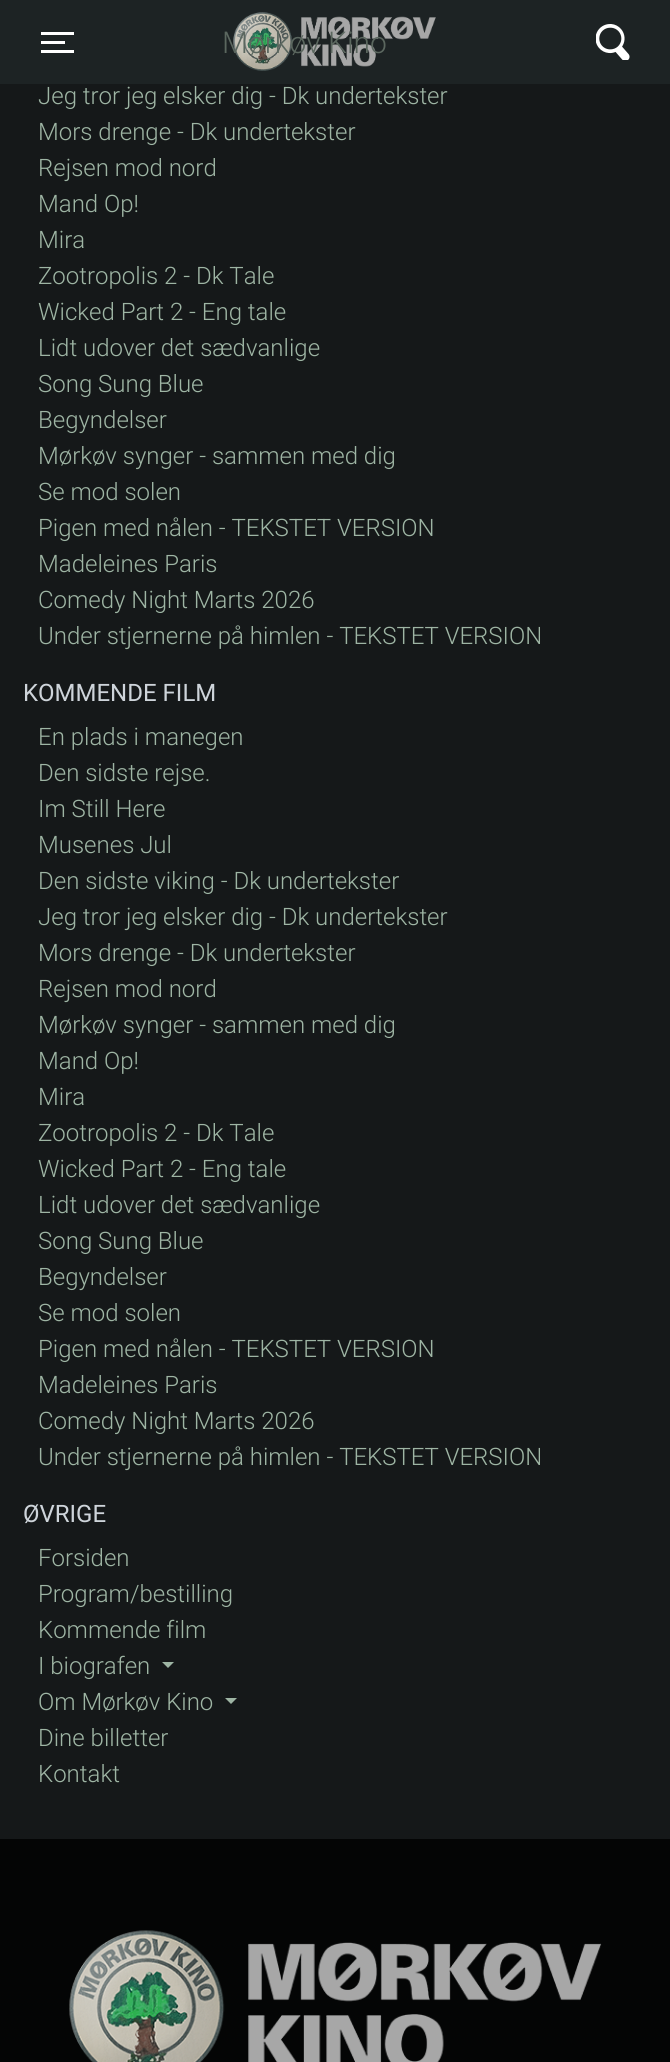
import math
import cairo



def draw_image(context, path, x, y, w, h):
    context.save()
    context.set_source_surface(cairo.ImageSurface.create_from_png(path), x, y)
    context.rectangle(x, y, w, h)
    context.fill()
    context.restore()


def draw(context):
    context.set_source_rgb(21 / 255, 24 / 255, 25 / 255)
    context.paint()
    context.set_source_rgb(29 / 255, 35 / 255, 36 / 255)
    context.rectangle(0, 0, 670, 84)
    context.fill()
    context.set_source_rgb(1, 1, 1)
    context.rectangle(41, 32, 33, 3)
    context.fill()
    context.rectangle(41, 41, 24, 3)
    context.fill()
    context.rectangle(41, 50, 33, 3)
    context.fill()
    draw_image(context, "images/1.png", 233, 12, 203, 59)
    draw_image(context, "images/2.png", 596, 24, 34, 36)
    context.set_source_rgb(158 / 255, 181 / 255, 164 / 255)
    context.new_path()
    context.move_to(162, 1662)
    context.line_to(174, 1662)
    context.line_to(168, 1668)
    context.close_path()
    context.fill()
    context.new_path()
    context.move_to(225, 1698)
    context.line_to(237, 1698)
    context.line_to(231, 1704)
    context.close_path()
    context.fill()
    context.set_source_rgb(4 / 255, 5 / 255, 5 / 255)
    context.rectangle(0, 1839, 670, 223)
    context.fill()
    draw_image(context, "images/3.png", 69, 1930, 533, 132)
    context.select_font_face("Roboto Light")
    context.set_font_size(30)
    context.set_source_rgb(91 / 255, 103 / 255, 95 / 255)
    context.move_to(222, 53)
    context.show_text("Mørkøv Kino")
    context.set_font_size(24)
    context.set_source_rgb(158 / 255, 181 / 255, 164 / 255)
    context.move_to(38, 104)
    context.show_text("Jeg tror jeg elsker dig - Dk undertekster")
    context.move_to(38, 140)
    context.show_text("Mors drenge - Dk undertekster")
    context.move_to(38, 176)
    context.show_text("Rejsen mod nord")
    context.move_to(38, 212)
    context.show_text("Mand Op!")
    context.move_to(38, 248)
    context.show_text("Mira")
    context.move_to(38, 284)
    context.show_text("Zootropolis 2 - Dk Tale")
    context.move_to(38, 320)
    context.show_text("Wicked Part 2 - Eng tale")
    context.move_to(38, 356)
    context.show_text("Lidt udover det sædvanlige")
    context.move_to(38, 392)
    context.show_text("Song Sung Blue")
    context.move_to(38, 428)
    context.show_text("Begyndelser")
    context.move_to(38, 464)
    context.show_text("Mørkøv synger - sammen med dig")
    context.move_to(38, 500)
    context.show_text("Se mod solen")
    context.move_to(38, 536)
    context.show_text("Pigen med nålen - TEKSTET VERSION")
    context.move_to(38, 572)
    context.show_text("Madeleines Paris")
    context.move_to(38, 608)
    context.show_text("Comedy Night Marts 2026")
    context.move_to(38, 644)
    context.show_text("Under stjernerne på himlen - TEKSTET VERSION")
    context.select_font_face("Roboto")
    context.set_source_rgb(206 / 255, 212 / 255, 218 / 255)
    context.move_to(23, 701)
    context.show_text("KOMMENDE FILM")
    context.select_font_face("Roboto Light")
    context.set_source_rgb(158 / 255, 181 / 255, 164 / 255)
    context.move_to(38, 745)
    context.show_text("En plads i manegen")
    context.move_to(38, 781)
    context.show_text("Den sidste rejse.")
    context.move_to(38, 817)
    context.show_text("Im Still Here")
    context.move_to(38, 853)
    context.show_text("Musenes Jul")
    context.move_to(38, 889)
    context.show_text("Den sidste viking - Dk undertekster")
    context.move_to(38, 925)
    context.show_text("Jeg tror jeg elsker dig - Dk undertekster")
    context.move_to(38, 961)
    context.show_text("Mors drenge - Dk undertekster")
    context.move_to(38, 997)
    context.show_text("Rejsen mod nord")
    context.move_to(38, 1033)
    context.show_text("Mørkøv synger - sammen med dig")
    context.move_to(38, 1069)
    context.show_text("Mand Op!")
    context.move_to(38, 1105)
    context.show_text("Mira")
    context.move_to(38, 1141)
    context.show_text("Zootropolis 2 - Dk Tale")
    context.move_to(38, 1177)
    context.show_text("Wicked Part 2 - Eng tale")
    context.move_to(38, 1213)
    context.show_text("Lidt udover det sædvanlige")
    context.move_to(38, 1249)
    context.show_text("Song Sung Blue")
    context.move_to(38, 1285)
    context.show_text("Begyndelser")
    context.move_to(38, 1321)
    context.show_text("Se mod solen")
    context.move_to(38, 1357)
    context.show_text("Pigen med nålen - TEKSTET VERSION")
    context.move_to(38, 1393)
    context.show_text("Madeleines Paris")
    context.move_to(38, 1429)
    context.show_text("Comedy Night Marts 2026")
    context.move_to(38, 1465)
    context.show_text("Under stjernerne på himlen - TEKSTET VERSION")
    context.select_font_face("Roboto")
    context.set_source_rgb(206 / 255, 212 / 255, 218 / 255)
    context.move_to(23, 1522)
    context.show_text("ØVRIGE")
    context.select_font_face("Roboto Light")
    context.set_source_rgb(158 / 255, 181 / 255, 164 / 255)
    context.move_to(38, 1566)
    context.show_text("Forsiden")
    context.move_to(38, 1602)
    context.show_text("Program/bestilling")
    context.move_to(38, 1638)
    context.show_text("Kommende film")
    context.move_to(38, 1674)
    context.show_text("I biografen")
    context.move_to(38, 1710)
    context.show_text("Om Mørkøv Kino")
    context.move_to(38, 1746)
    context.show_text("Dine billetter")
    context.move_to(38, 1782)
    context.show_text("Kontakt")


surface = cairo.ImageSurface(cairo.Format.RGB24, 670, 2062)
context = cairo.Context(surface)
options = cairo.FontOptions()
options.set_hint_metrics(cairo.HintMetrics.OFF)
options.set_hint_style(cairo.HintStyle.NONE)
context.set_font_options(options)
context.set_miter_limit(4)
draw(context)
surface.write_to_png("out.png")
